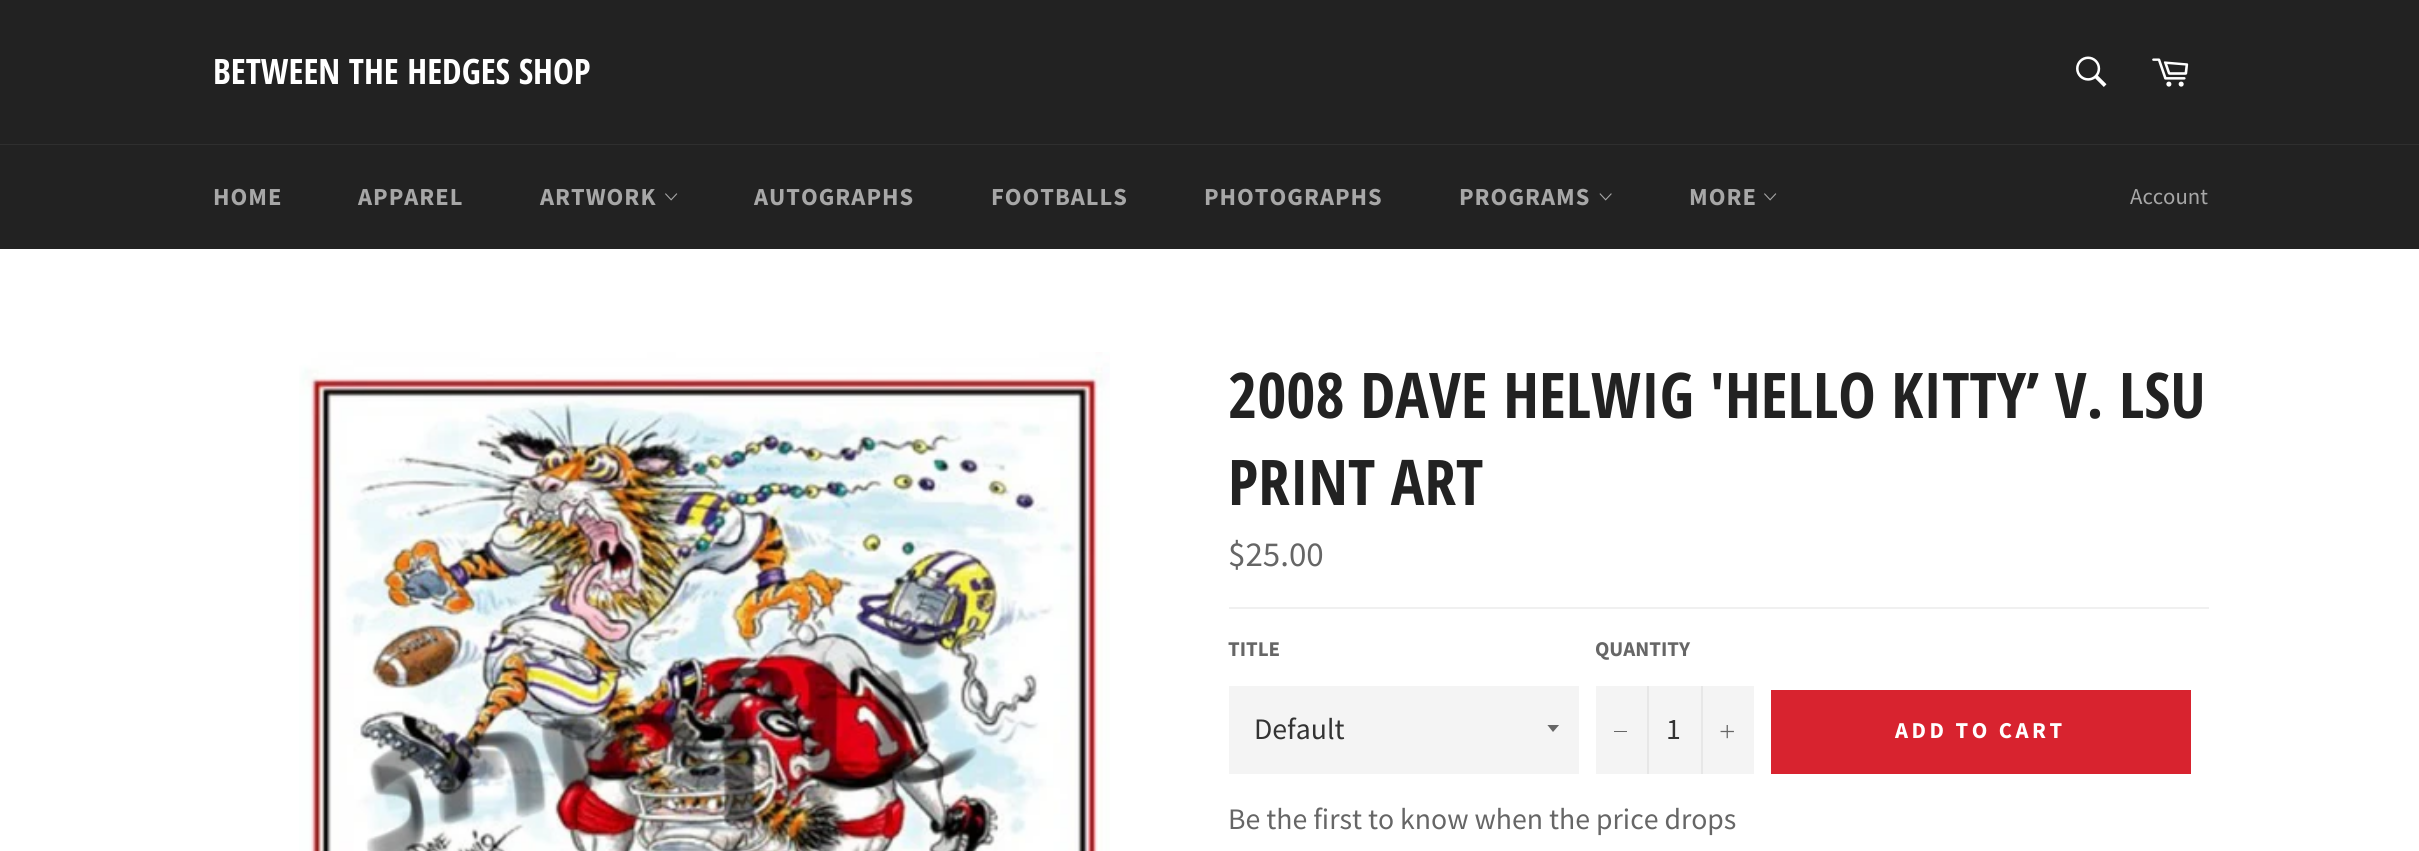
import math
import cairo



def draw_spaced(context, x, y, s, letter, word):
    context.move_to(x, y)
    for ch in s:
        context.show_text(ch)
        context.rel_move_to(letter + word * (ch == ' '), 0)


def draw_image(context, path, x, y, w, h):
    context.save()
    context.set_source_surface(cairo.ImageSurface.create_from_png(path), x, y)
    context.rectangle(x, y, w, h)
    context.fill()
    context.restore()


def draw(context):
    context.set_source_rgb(34 / 255, 34 / 255, 34 / 255)
    context.paint()
    draw_image(context, "images/1.png", 2076, 56, 31, 31)
    draw_image(context, "images/2.png", 2152, 58, 37, 29)
    context.set_source_rgb(47 / 255, 47 / 255, 47 / 255)
    context.rectangle(0, 144, 2419, 1)
    context.fill()
    draw_image(context, "images/3.png", 665, 193, 13, 8)
    draw_image(context, "images/4.png", 1599, 193, 13, 8)
    draw_image(context, "images/3.png", 1764, 193, 13, 8)
    context.set_source_rgb(1, 1, 1)
    context.rectangle(0, 249, 2419, 602)
    context.fill()
    draw_image(context, "images/5.png", 299, 352, 811, 499)
    context.set_source_rgb(240 / 255, 240 / 255, 240 / 255)
    context.rectangle(1229, 607, 980, 2)
    context.fill()
    context.set_source_rgb(244 / 255, 244 / 255, 244 / 255)
    context.rectangle(1229, 686, 350, 88)
    context.fill()
    context.save()
    context.rectangle(1547, 725, 14, 8)
    context.clip()
    context.set_source_rgb(102 / 255, 102 / 255, 102 / 255)
    context.new_path()
    context.move_to(1547, 724.5)
    context.line_to(1553, 732)
    context.line_to(1559.5, 724.5)
    context.close_path()
    context.fill()
    context.restore()
    context.rectangle(1596, 686, 158, 88)
    context.fill()
    context.set_source_rgb(231 / 255, 231 / 255, 231 / 255)
    context.rectangle(1647, 686, 2, 88)
    context.fill()
    context.set_source_rgb(102 / 255, 102 / 255, 102 / 255)
    context.rectangle(1614, 731, 13, 1)
    context.fill()
    context.set_source_rgb(231 / 255, 231 / 255, 231 / 255)
    context.rectangle(1701, 686, 2, 88)
    context.fill()
    draw_image(context, "images/6.png", 1720, 725, 14, 14)
    context.set_source_rgb(216 / 255, 35 / 255, 47 / 255)
    context.rectangle(1771, 690, 420, 84)
    context.fill()
    context.select_font_face("Open Sans Condensed", cairo.FontSlant.NORMAL, cairo.FontWeight.BOLD)
    context.set_font_size(35)
    context.set_source_rgb(1, 1, 1)
    context.move_to(213, 84)
    context.show_text("BETWEEN THE HEDGES SHOP")
    context.select_font_face("Source Sans Pro", cairo.FontSlant.NORMAL, cairo.FontWeight.BOLD)
    context.set_font_size(24.5)
    context.set_source_rgb(167 / 255, 167 / 255, 167 / 255)
    draw_spaced(context, 213, 205, "HOME", 1, 0)
    draw_spaced(context, 358, 205, "APPAREL", 1, 0)
    draw_spaced(context, 540, 205, "ARTWORK", 1, 0)
    draw_spaced(context, 754, 205, "AUTOGRAPHS", 1, 0)
    draw_spaced(context, 991, 205, "FOOTBALLS", 1, 0)
    draw_spaced(context, 1204, 205, "PHOTOGRAPHS", 1, 0)
    draw_spaced(context, 1459, 205, "PROGRAMS", 1, 0)
    draw_spaced(context, 1689, 205, "MORE", 1, 0)
    context.select_font_face("Source Sans Pro")
    context.set_font_size(22.75)
    context.move_to(2130, 204)
    context.show_text("Account")
    context.select_font_face("Open Sans Condensed", cairo.FontSlant.NORMAL, cairo.FontWeight.BOLD)
    context.set_font_size(63)
    context.set_source_rgb(34 / 255, 34 / 255, 34 / 255)
    context.move_to(1228, 418)
    context.show_text("2008 DAVE HELWIG 'HELLO KITTY’ V. LSU")
    context.move_to(1228, 505)
    context.show_text("PRINT ART")
    context.select_font_face("Source Sans Pro")
    context.set_font_size(35)
    context.set_source_rgb(102 / 255, 102 / 255, 102 / 255)
    context.move_to(1228, 566)
    context.show_text("$25.00")
    context.select_font_face("Source Sans Pro", cairo.FontSlant.NORMAL, cairo.FontWeight.BOLD)
    context.set_font_size(21)
    context.move_to(1228, 656)
    context.show_text("TITLE")
    context.select_font_face("Source Sans Pro")
    context.set_font_size(29.75)
    context.set_source_rgb(51 / 255, 51 / 255, 51 / 255)
    context.move_to(1254, 739)
    context.show_text("Default")
    context.select_font_face("Source Sans Pro", cairo.FontSlant.NORMAL, cairo.FontWeight.BOLD)
    context.set_font_size(21)
    context.set_source_rgb(102 / 255, 102 / 255, 102 / 255)
    context.move_to(1595, 656)
    context.show_text("QUANTITY")
    context.select_font_face("Source Sans Pro")
    context.set_font_size(29.75)
    context.set_source_rgb(51 / 255, 51 / 255, 51 / 255)
    context.move_to(1666, 739)
    context.show_text("1")
    context.select_font_face("Source Sans Pro", cairo.FontSlant.NORMAL, cairo.FontWeight.BOLD)
    context.set_font_size(22.75)
    context.set_source_rgb(1, 1, 1)
    draw_spaced(context, 1895, 738, "ADD TO CART", 3.5, 0)
    context.select_font_face("Source Sans Pro")
    context.set_font_size(29.75)
    context.set_source_rgb(102 / 255, 102 / 255, 102 / 255)
    context.move_to(1228, 829)
    context.show_text("Be the first to know when the price drops")


surface = cairo.ImageSurface(cairo.Format.RGB24, 2419, 851)
context = cairo.Context(surface)
options = cairo.FontOptions()
options.set_hint_metrics(cairo.HintMetrics.OFF)
options.set_hint_style(cairo.HintStyle.NONE)
context.set_font_options(options)
context.set_miter_limit(4)
draw(context)
surface.write_to_png("out.png")
